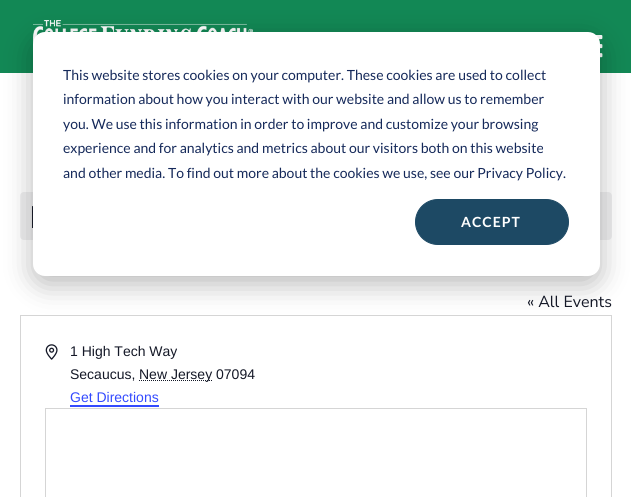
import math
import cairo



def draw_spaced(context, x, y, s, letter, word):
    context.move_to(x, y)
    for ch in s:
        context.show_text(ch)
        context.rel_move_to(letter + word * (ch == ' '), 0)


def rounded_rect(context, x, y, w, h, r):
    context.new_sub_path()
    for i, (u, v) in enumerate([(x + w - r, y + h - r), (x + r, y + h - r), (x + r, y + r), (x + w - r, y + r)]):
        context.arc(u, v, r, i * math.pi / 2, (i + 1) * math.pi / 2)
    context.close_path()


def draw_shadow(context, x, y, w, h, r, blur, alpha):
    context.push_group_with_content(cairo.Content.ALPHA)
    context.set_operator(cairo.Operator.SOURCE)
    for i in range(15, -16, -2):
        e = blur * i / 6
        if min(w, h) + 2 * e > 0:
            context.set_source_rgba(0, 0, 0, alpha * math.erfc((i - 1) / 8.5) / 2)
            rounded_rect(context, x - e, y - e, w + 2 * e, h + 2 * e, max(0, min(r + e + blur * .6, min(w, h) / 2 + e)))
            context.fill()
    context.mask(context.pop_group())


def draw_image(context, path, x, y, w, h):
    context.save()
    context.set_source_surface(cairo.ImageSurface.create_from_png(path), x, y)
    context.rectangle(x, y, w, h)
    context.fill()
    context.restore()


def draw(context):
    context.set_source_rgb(1, 1, 1)
    context.paint()
    context.set_source_rgb(18 / 255, 136 / 255, 85 / 255)
    context.rectangle(0, 0, 631, 73)
    context.fill()
    draw_image(context, "images/1.png", 33, 20, 220, 24)
    draw_image(context, "images/2.png", 595, 35, 8, 23)
    context.set_source_rgb(239 / 255, 239 / 255, 240 / 255)
    rounded_rect(context, 20, 192, 592, 48, 4)
    context.fill()
    draw_image(context, "images/3.png", 32, 206, 1, 22)
    context.rectangle(20.5, 315.5, 591, 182)
    context.set_source_rgb(213 / 255, 213 / 255, 213 / 255)
    context.set_line_width(1)
    context.stroke()
    context.set_source_rgb(0, 0, 0)
    draw_shadow(context, 33, 40, 567, 244, 12, 14, 0.28)
    context.set_source_rgb(1, 1, 1)
    rounded_rect(context, 33, 32, 567, 244, 12)
    context.fill()
    context.set_source_rgb(29 / 255, 73 / 255, 100 / 255)
    rounded_rect(context, 415.5, 199.5, 153, 45, 22.5)
    context.fill_preserve()
    context.stroke()
    draw_image(context, "images/4.png", 45, 344, 13, 16)
    context.new_path()
    context.move_to(139, 380.5)
    context.line_to(212, 380.5)
    context.set_source_rgb(20 / 255, 24 / 255, 39 / 255)
    context.set_dash([1, 1])
    context.stroke()
    context.set_source_rgb(51 / 255, 74 / 255, 1)
    context.rectangle(70, 405, 89, 2)
    context.fill()
    context.rectangle(45.5, 408.5, 541, 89)
    context.set_source_rgb(213 / 255, 213 / 255, 213 / 255)
    context.set_dash([])
    context.stroke()
    context.select_font_face("Lato")
    context.set_font_size(14)
    context.set_source_rgb(21 / 255, 41 / 255, 90 / 255)
    context.move_to(63, 80)
    context.show_text("This website stores cookies on your computer. These cookies are used to collect")
    context.move_to(63, 104)
    context.show_text("information about how you interact with our website and allow us to remember")
    context.move_to(63, 129)
    context.show_text("you. We use this information in order to improve and customize your browsing")
    context.move_to(63, 153)
    context.show_text("experience and for analytics and metrics about our visitors both on this website")
    context.move_to(63, 178)
    context.show_text("and other media. To find out more about the cookies we use, see our Privacy Policy.")
    context.select_font_face("Lato", cairo.FontSlant.NORMAL, cairo.FontWeight.BOLD)
    context.set_source_rgb(1, 1, 1)
    draw_spaced(context, 461, 227, "ACCEPT", 1, 0)
    context.select_font_face("Nunito Sans")
    context.set_font_size(16)
    context.set_source_rgb(20 / 255, 24 / 255, 39 / 255)
    context.move_to(527, 307)
    context.show_text("« All Events")
    context.select_font_face("Liberation Sans")
    context.set_font_size(14)
    context.move_to(70, 356)
    context.show_text("1 High Tech Way")
    context.move_to(70, 379)
    context.show_text("Secaucus,")
    context.move_to(139, 379)
    context.show_text("New Jersey 07094")
    context.set_source_rgb(51 / 255, 74 / 255, 1)
    context.move_to(70, 402)
    context.show_text("Get Directions")


surface = cairo.ImageSurface(cairo.Format.RGB24, 631, 497)
context = cairo.Context(surface)
options = cairo.FontOptions()
options.set_hint_metrics(cairo.HintMetrics.OFF)
options.set_hint_style(cairo.HintStyle.NONE)
context.set_font_options(options)
context.set_miter_limit(4)
draw(context)
surface.write_to_png("out.png")
